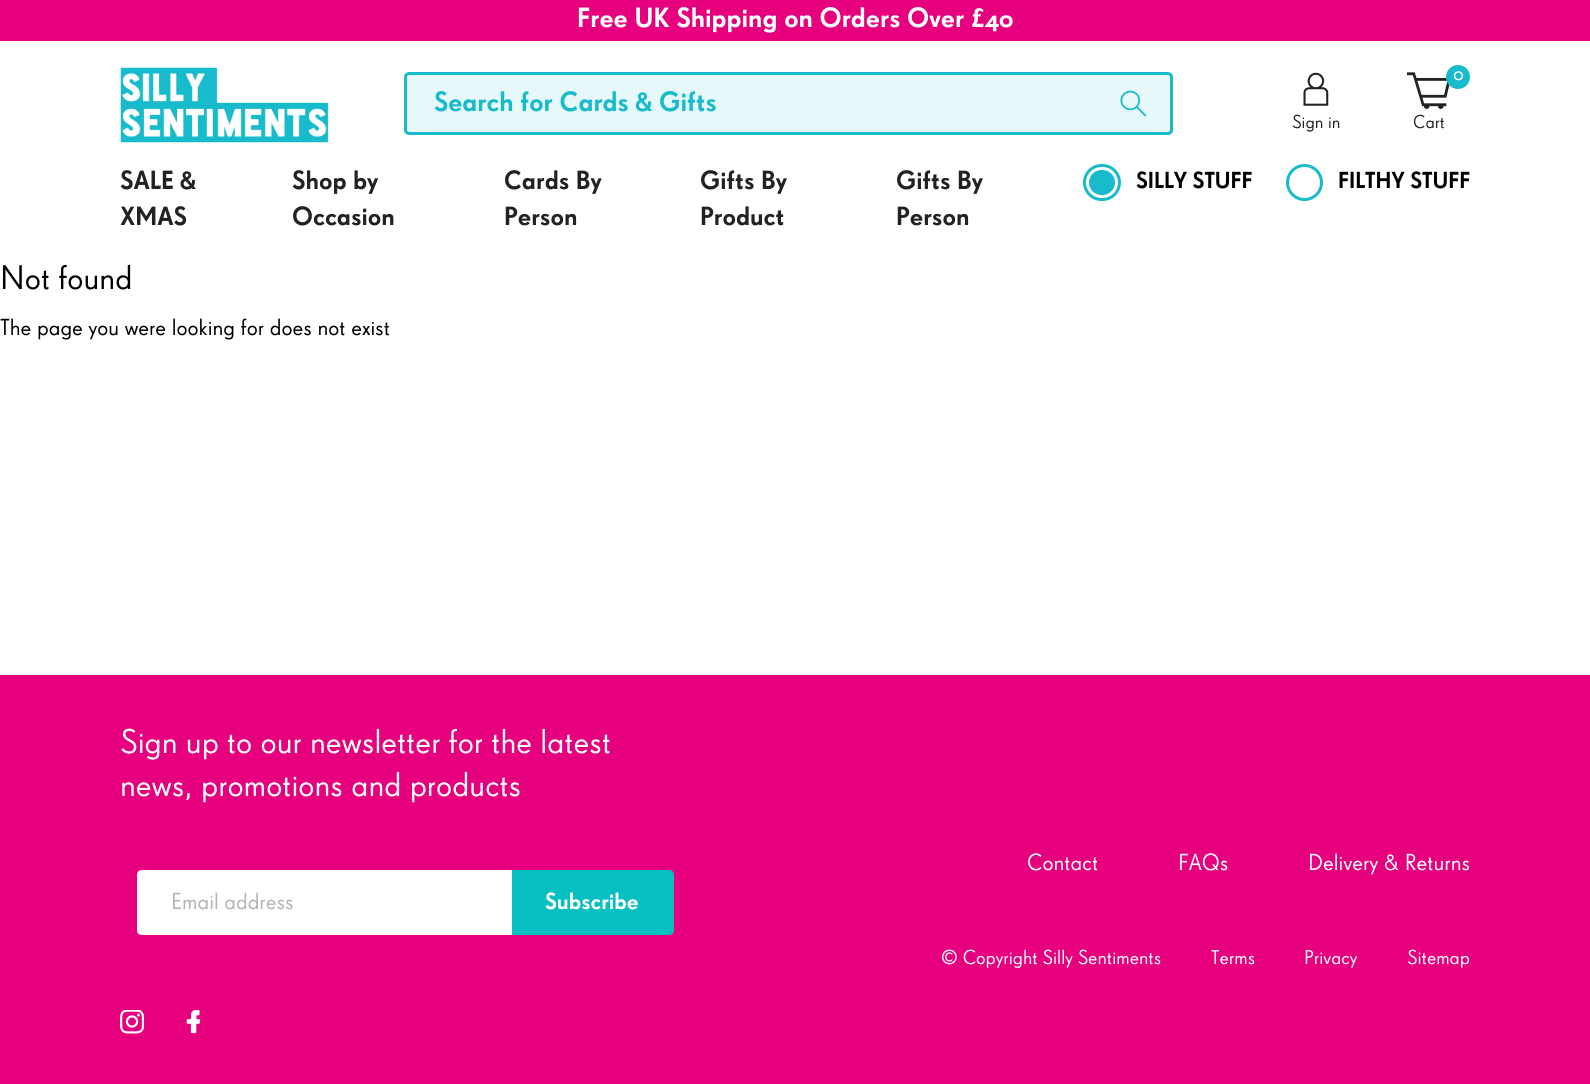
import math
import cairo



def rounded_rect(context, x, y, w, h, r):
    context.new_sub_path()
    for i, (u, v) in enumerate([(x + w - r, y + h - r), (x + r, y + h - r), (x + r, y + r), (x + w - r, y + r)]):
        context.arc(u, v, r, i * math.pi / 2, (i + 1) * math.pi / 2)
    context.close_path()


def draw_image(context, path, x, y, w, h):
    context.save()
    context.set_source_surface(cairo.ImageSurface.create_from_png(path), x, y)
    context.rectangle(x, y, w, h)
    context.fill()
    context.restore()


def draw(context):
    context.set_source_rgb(1, 1, 1)
    context.paint()
    context.set_source_rgb(230 / 255, 0, 126 / 255)
    context.rectangle(0, 0, 1590, 41)
    context.fill()
    draw_image(context, "images/1.png", 120, 67, 209, 76)
    context.set_source_rgb(230 / 255, 248 / 255, 249 / 255)
    rounded_rect(context, 405.5, 73.5, 766, 60, 3.5)
    context.fill_preserve()
    context.set_source_rgb(23 / 255, 187 / 255, 203 / 255)
    context.set_line_width(3)
    context.stroke()
    draw_image(context, "images/2.png", 1120, 90, 27, 27)
    draw_image(context, "images/3.png", 1407, 72, 43, 37)
    context.arc(1458, 77, 12, 0, 2 * math.pi)
    context.fill()
    draw_image(context, "images/4.png", 1303, 72, 26, 34)
    rounded_rect(context, 1084.5, 165.5, 35, 34, 17)
    context.stroke()
    rounded_rect(context, 1089, 170, 26, 25, 12.5)
    context.fill()
    context.arc(1304.5, 182.5, 17, 0, 2 * math.pi)
    context.stroke()
    context.set_source_rgb(230 / 255, 0, 126 / 255)
    context.rectangle(0, 675, 1590, 409)
    context.fill()
    context.set_source_rgb(1, 1, 1)
    context.new_path()
    context.move_to(142, 870)
    context.line_to(512, 870)
    context.line_to(512, 935)
    context.line_to(142, 935)
    context.curve_to(139, 935, 137, 933, 137, 930)
    context.line_to(137, 875)
    context.curve_to(137, 872, 139, 870, 142, 870)
    context.close_path()
    context.fill()
    context.set_source_rgb(6 / 255, 191 / 255, 193 / 255)
    context.new_path()
    context.move_to(512, 870)
    context.line_to(669, 870)
    context.curve_to(672, 870, 674, 872, 674, 875)
    context.line_to(674, 930)
    context.curve_to(674, 933, 672, 935, 669, 935)
    context.line_to(512, 935)
    context.close_path()
    context.fill()
    draw_image(context, "images/5.png", 120, 1010, 24, 24)
    draw_image(context, "images/6.png", 186, 1010, 15, 24)
    context.select_font_face("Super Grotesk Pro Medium")
    context.set_font_size(27)
    context.set_source_rgb(1, 1, 1)
    context.move_to(577, 27)
    context.show_text("Free UK Shipping on Orders Over £40")
    context.set_source_rgb(23 / 255, 187 / 255, 203 / 255)
    context.move_to(434, 111)
    context.show_text("Search for Cards & Gifts")
    context.select_font_face("Super Grotesk Pro")
    context.set_font_size(21)
    context.set_source_rgb(1, 1, 1)
    context.move_to(1453, 80)
    context.show_text("0")
    context.set_font_size(18)
    context.set_source_rgb(34 / 255, 34 / 255, 34 / 255)
    context.move_to(1413, 128)
    context.show_text("Cart")
    context.move_to(1292, 128)
    context.show_text("Sign in")
    context.select_font_face("Super Grotesk Pro Medium")
    context.set_font_size(25.5)
    context.move_to(120, 189)
    context.show_text("SALE &")
    context.move_to(120, 225)
    context.show_text("XMAS")
    context.move_to(292, 189)
    context.show_text("Shop by")
    context.move_to(292, 225)
    context.show_text("Occasion")
    context.move_to(504, 189)
    context.show_text("Cards By")
    context.move_to(504, 225)
    context.show_text("Person")
    context.move_to(700, 189)
    context.show_text("Gifts By")
    context.move_to(700, 225)
    context.show_text("Product")
    context.move_to(896, 189)
    context.show_text("Gifts By")
    context.move_to(896, 225)
    context.show_text("Person")
    context.set_font_size(22.5)
    context.set_source_rgb(0, 0, 0)
    context.move_to(1136, 188)
    context.show_text("SILLY STUFF")
    context.move_to(1338, 188)
    context.show_text("FILTHY STUFF")
    context.select_font_face("Super Grotesk Pro")
    context.set_font_size(33)
    context.move_to(0, 289)
    context.show_text("Not found")
    context.set_font_size(22.5)
    context.move_to(0, 335)
    context.show_text("The page you were looking for does not exist")
    context.set_font_size(33)
    context.set_source_rgb(1, 1, 1)
    context.move_to(120, 753)
    context.show_text("Sign up to our newsletter for the latest")
    context.move_to(120, 796)
    context.show_text("news, promotions and products")
    context.set_font_size(22.5)
    context.set_source_rgb(179 / 255, 179 / 255, 179 / 255)
    context.move_to(171, 909)
    context.show_text("Email address")
    context.select_font_face("Super Grotesk Pro Medium")
    context.set_source_rgb(1, 1, 1)
    context.move_to(545, 909)
    context.show_text("Subscribe")
    context.select_font_face("Super Grotesk Pro")
    context.move_to(1027, 870)
    context.show_text("Contact")
    context.move_to(1178, 870)
    context.show_text("FAQs")
    context.move_to(1308, 870)
    context.show_text("Delivery & Returns")
    context.set_font_size(19.5)
    context.move_to(941, 964)
    context.show_text("© Copyright Silly Sentiments")
    context.move_to(1211, 964)
    context.show_text("Terms")
    context.move_to(1304, 964)
    context.show_text("Privacy")
    context.move_to(1407, 964)
    context.show_text("Sitemap")


surface = cairo.ImageSurface(cairo.Format.RGB24, 1590, 1084)
context = cairo.Context(surface)
options = cairo.FontOptions()
options.set_hint_metrics(cairo.HintMetrics.OFF)
options.set_hint_style(cairo.HintStyle.NONE)
context.set_font_options(options)
context.set_miter_limit(4)
draw(context)
surface.write_to_png("out.png")
